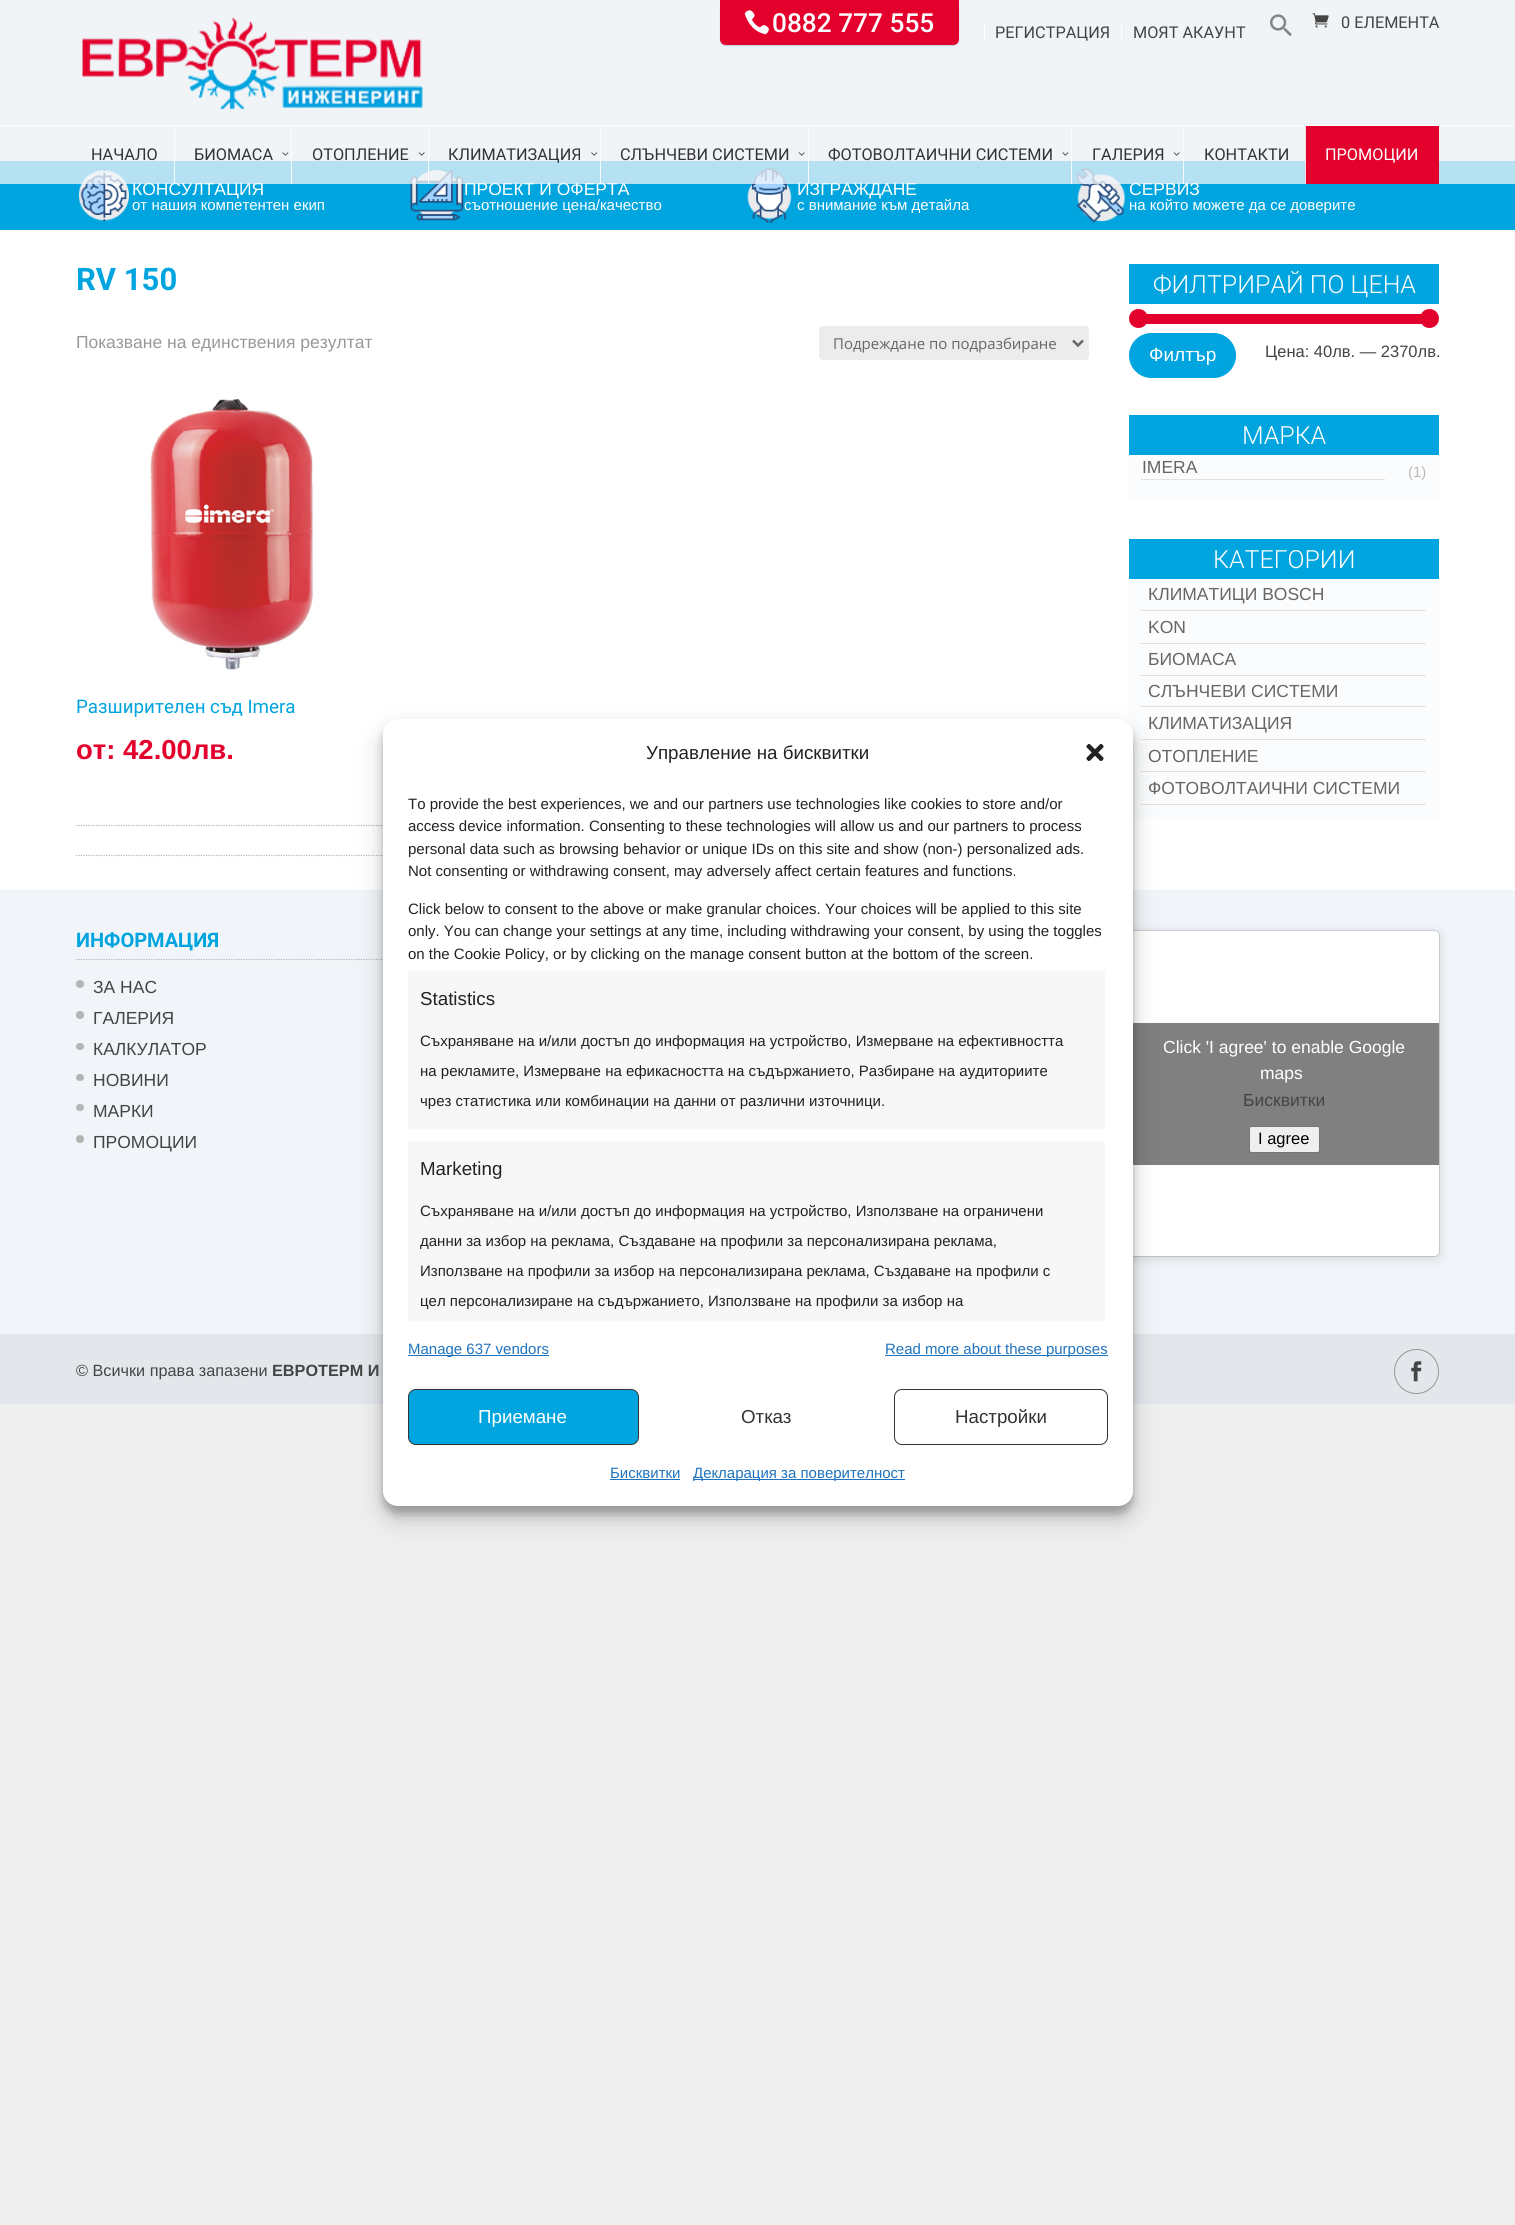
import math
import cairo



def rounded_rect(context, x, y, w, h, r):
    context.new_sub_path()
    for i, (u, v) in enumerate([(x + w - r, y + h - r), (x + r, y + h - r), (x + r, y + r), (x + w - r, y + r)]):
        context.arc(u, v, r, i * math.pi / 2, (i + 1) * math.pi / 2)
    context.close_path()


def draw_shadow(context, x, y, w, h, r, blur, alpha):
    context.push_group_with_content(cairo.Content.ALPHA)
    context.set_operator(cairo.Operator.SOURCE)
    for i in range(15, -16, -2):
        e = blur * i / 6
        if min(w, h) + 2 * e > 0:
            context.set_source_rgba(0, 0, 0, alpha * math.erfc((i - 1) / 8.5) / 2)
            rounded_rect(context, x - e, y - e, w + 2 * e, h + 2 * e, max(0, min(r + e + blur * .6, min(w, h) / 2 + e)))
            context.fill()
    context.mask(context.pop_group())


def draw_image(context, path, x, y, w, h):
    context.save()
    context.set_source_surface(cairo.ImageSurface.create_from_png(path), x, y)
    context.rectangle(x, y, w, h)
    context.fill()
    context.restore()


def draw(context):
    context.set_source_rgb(239 / 255, 239 / 255, 239 / 255)
    context.paint()
    context.set_source_rgb(0, 165 / 255, 223 / 255)
    context.rectangle(0, 161, 1515, 69)
    context.fill()
    draw_image(context, "images/8.png", 79, 169, 50, 53)
    draw_image(context, "images/9.png", 410, 170, 54, 51)
    draw_image(context, "images/10.png", 747, 168, 45, 55)
    draw_image(context, "images/11.png", 1076, 168, 50, 55)
    context.set_source_rgb(1, 1, 1)
    context.rectangle(0, 230, 1515, 660)
    context.fill()
    context.set_source_rgb(236 / 255, 236 / 255, 236 / 255)
    rounded_rect(context, 819, 326, 270, 34, 4)
    context.fill()
    context.new_path()
    context.move_to(1073, 340.5)
    context.line_to(1078, 345.5)
    context.line_to(1083, 340.5)
    context.set_source_rgb(102 / 255, 102 / 255, 102 / 255)
    context.set_line_width(2.5)
    context.stroke()
    draw_image(context, "images/12.png", 150, 398, 164, 272)
    context.new_path()
    context.move_to(76, 825.5)
    context.line_to(1089, 825.5)
    context.set_source_rgb(180 / 255, 182 / 255, 189 / 255)
    context.set_line_width(1.2)
    context.set_dash([1.25, 1.25])
    context.stroke()
    context.new_path()
    context.move_to(76, 855.5)
    context.line_to(1089, 855.5)
    context.stroke()
    context.set_source_rgb(0, 164 / 255, 223 / 255)
    context.rectangle(1129, 264, 310, 40)
    context.fill()
    context.set_source_rgb(228 / 255, 0, 44 / 255)
    context.rectangle(1146, 314, 276, 10)
    context.fill()
    context.arc(1138.5, 318.5, 9.5, 0, 2 * math.pi)
    context.fill()
    context.arc(1429.5, 318.5, 9.5, 0, 2 * math.pi)
    context.fill()
    context.set_source_rgb(0, 164 / 255, 223 / 255)
    rounded_rect(context, 1129.5, 333.5, 106, 44, 22)
    context.fill_preserve()
    context.set_line_width(1)
    context.set_dash([])
    context.stroke()
    context.rectangle(1129, 415, 310, 40)
    context.fill()
    context.set_source_rgb(251 / 255, 252 / 255, 253 / 255)
    context.rectangle(1129, 455, 310, 46)
    context.fill()
    context.set_source_rgb(226 / 255, 226 / 255, 226 / 255)
    context.rectangle(1141, 479, 244, 1)
    context.fill()
    context.set_source_rgb(0, 164 / 255, 223 / 255)
    context.rectangle(1129, 539, 310, 40)
    context.fill()
    context.set_source_rgb(251 / 255, 252 / 255, 253 / 255)
    context.rectangle(1129, 579, 310, 239)
    context.fill()
    context.set_source_rgb(226 / 255, 226 / 255, 226 / 255)
    context.rectangle(1141, 610, 285, 1)
    context.fill()
    context.rectangle(1141, 643, 285, 1)
    context.fill()
    context.rectangle(1141, 675, 285, 1)
    context.fill()
    context.rectangle(1141, 706, 285, 1)
    context.fill()
    context.rectangle(1141, 739, 285, 1)
    context.fill()
    context.rectangle(1141, 771, 285, 1)
    context.fill()
    context.rectangle(1141, 804, 285, 1)
    context.fill()
    context.set_source_rgb(241 / 255, 245 / 255, 249 / 255)
    context.rectangle(0, 890, 1515, 444)
    context.fill()
    context.new_path()
    context.move_to(76, 959.5)
    context.line_to(386, 959.5)
    context.set_source_rgb(180 / 255, 182 / 255, 189 / 255)
    context.set_line_width(1.2)
    context.set_dash([1.25, 1.25])
    context.stroke()
    context.set_source_rgb(180 / 255, 180 / 255, 181 / 255)
    context.arc(80, 984, 4, 0, 2 * math.pi)
    context.fill()
    context.arc(80, 1015, 4, 0, 2 * math.pi)
    context.fill()
    rounded_rect(context, 76, 1043, 8, 7, 3.5)
    context.fill()
    rounded_rect(context, 76, 1074, 8, 7, 3.5)
    context.fill()
    rounded_rect(context, 76, 1104, 8, 7, 3.5)
    context.fill()
    context.arc(80, 1139, 4, 0, 2 * math.pi)
    context.fill()
    context.set_source_rgb(0, 0, 0)
    draw_shadow(context, 1129, 933, 310, 325, 4, 6, 0.15)
    draw_shadow(context, 1129, 931, 310, 325, 4, 0.5, 0.5)
    context.set_source_rgb(1, 1, 1)
    rounded_rect(context, 1129, 931, 310, 325, 4)
    context.fill()
    context.set_source_rgb(128 / 255, 128 / 255, 128 / 255)
    context.rectangle(1133, 1023, 306, 142)
    context.fill()
    context.set_source_rgb(239 / 255, 239 / 255, 239 / 255)
    rounded_rect(context, 1249.5, 1126.5, 70, 26, 2)
    context.fill_preserve()
    context.set_source_rgb(118 / 255, 118 / 255, 118 / 255)
    context.set_line_width(1)
    context.set_dash([])
    context.stroke()
    context.set_source_rgb(227 / 255, 231 / 255, 235 / 255)
    context.rectangle(0, 1334, 1515, 70)
    context.fill()
    context.arc(1416.5, 1371.5, 22, 0, 2 * math.pi)
    context.set_source_rgb(150 / 255, 150 / 255, 150 / 255)
    context.stroke()
    draw_image(context, "images/13.png", 1411, 1361, 11, 21)
    context.set_source_rgb(0, 0, 0)
    draw_shadow(context, 383, 726, 750, 788, 15, 4, 0.23)
    draw_shadow(context, 383, 731, 750, 788, 15, 12.5, 0.19)
    context.set_source_rgb(1, 1, 1)
    rounded_rect(context, 383, 719, 750, 787, 15)
    context.fill()
    draw_image(context, "images/14.png", 1086, 743, 18, 18)
    context.set_source_rgb(247 / 255, 247 / 255, 247 / 255)
    context.rectangle(408, 971, 697, 158)
    context.fill()
    context.rectangle(408, 1141, 697, 180)
    context.fill()
    context.set_source_rgb(30 / 255, 115 / 255, 190 / 255)
    context.rectangle(408, 1355, 141, 1)
    context.fill()
    context.rectangle(885, 1355, 223, 1)
    context.fill()
    context.set_source_rgb(0, 164 / 255, 223 / 255)
    rounded_rect(context, 408.5, 1389.5, 230, 55, 7.5)
    context.fill_preserve()
    context.set_source_rgb(51 / 255, 51 / 255, 51 / 255)
    context.stroke()
    rounded_rect(context, 894.5, 1389.5, 213, 55, 7.5)
    context.stroke()
    context.set_source_rgb(30 / 255, 115 / 255, 190 / 255)
    context.rectangle(610, 1479, 70, 1)
    context.fill()
    context.rectangle(693, 1479, 212, 1)
    context.fill()
    context.select_font_face("Liberation Sans")
    context.set_font_size(17.5)
    context.set_source_rgb(1, 1, 1)
    context.move_to(132, 195)
    context.show_text("КОНСУЛТАЦИЯ")
    context.set_font_size(15)
    context.move_to(132, 210)
    context.show_text("от нашия компетентен екип")
    context.set_font_size(17.5)
    context.move_to(464, 195)
    context.show_text("ПРОЕКТ И ОФЕРТА")
    context.set_font_size(15)
    context.move_to(464, 210)
    context.show_text("съотношение цена/качество")
    context.set_font_size(17.5)
    context.move_to(797, 195)
    context.show_text("ИЗГРАЖДАНЕ")
    context.set_font_size(15)
    context.move_to(797, 210)
    context.show_text("с внимание към детайла")
    context.set_font_size(17.5)
    context.move_to(1129, 195)
    context.show_text("СЕРВИЗ")
    context.set_source_rgba(241 / 255, 245 / 255, 249 / 255, 0.75)
    context.rectangle(0, 0, 1515, 184)
    context.fill()
    draw_image(context, "images/3.png", 1312, 13, 17, 15)
    draw_image(context, "images/2.png", 1270, 14, 22, 22)
    context.set_source_rgb(1, 1, 1)
    context.rectangle(1121, 24, 1, 16)
    context.fill()
    context.select_font_face("Roboto")
    context.set_font_size(16.25)
    context.set_source_rgb(68 / 255, 68 / 255, 68 / 255)
    context.move_to(1133, 38)
    context.show_text("МОЯТ АКАУНТ")
    context.set_source_rgb(1, 1, 1)
    context.rectangle(984, 24, 1, 16)
    context.fill()
    context.set_source_rgb(68 / 255, 68 / 255, 68 / 255)
    context.move_to(995, 38)
    context.show_text("РЕГИСТРАЦИЯ")
    context.set_source_rgb(191 / 255, 210 / 255, 228 / 255)
    draw_shadow(context, 720, 1, 239, 45, 6, 0.5, 1)
    context.set_source_rgb(228 / 255, 0, 44 / 255)
    context.new_path()
    context.move_to(720, 0)
    context.line_to(959, 0)
    context.line_to(959, 39)
    context.curve_to(959, 42.5, 956.5, 45, 953, 45)
    context.line_to(726, 45)
    context.curve_to(722.5, 45, 720, 42.5, 720, 39)
    context.close_path()
    context.fill()
    draw_image(context, "images/1.png", 744, 10, 25, 25)
    context.select_font_face("Roboto Medium")
    context.set_font_size(26.25)
    context.set_source_rgb(1, 1, 1)
    context.move_to(772, 32)
    context.show_text("0882 777 555")
    context.select_font_face("Roboto")
    context.set_font_size(16.25)
    context.set_source_rgb(68 / 255, 68 / 255, 68 / 255)
    context.move_to(1341, 28)
    context.show_text("0 ЕЛЕМЕНТА")
    context.set_source_rgb(251 / 255, 219 / 255, 225 / 255)
    context.rectangle(1305, 126, 1, 58)
    context.fill()
    context.set_source_rgb(228 / 255, 0, 44 / 255)
    context.rectangle(1306, 126, 133, 58)
    context.fill()
    context.set_source_rgb(1, 1, 1)
    context.move_to(1325, 160)
    context.show_text("ПРОМОЦИИ")
    context.set_source_rgba(1, 1, 1, 0.86)
    context.rectangle(1183, 126, 1, 58)
    context.fill()
    context.set_source_rgb(51 / 255, 51 / 255, 51 / 255)
    context.move_to(1204, 160)
    context.show_text("КОНТАКТИ")
    draw_image(context, "images/6.png", 1173, 152, 7, 4)
    context.set_source_rgba(1, 1, 1, 0.86)
    context.rectangle(1071, 126, 1, 58)
    context.fill()
    context.set_source_rgb(51 / 255, 51 / 255, 51 / 255)
    context.move_to(1092, 160)
    context.show_text("ГАЛЕРИЯ")
    draw_image(context, "images/5.png", 1062, 152, 7, 4)
    context.set_source_rgba(1, 1, 1, 0.86)
    context.rectangle(808, 126, 1, 58)
    context.fill()
    context.set_source_rgb(51 / 255, 51 / 255, 51 / 255)
    context.move_to(828, 160)
    context.show_text("ФОТОВОЛТАИЧНИ СИСТЕМИ")
    draw_image(context, "images/6.png", 798, 152, 7, 4)
    context.set_source_rgba(1, 1, 1, 0.86)
    context.rectangle(600, 126, 1, 58)
    context.fill()
    context.set_source_rgb(51 / 255, 51 / 255, 51 / 255)
    context.move_to(620, 160)
    context.show_text("СЛЪНЧЕВИ СИСТЕМИ")
    draw_image(context, "images/7.png", 591, 152, 6, 4)
    context.set_source_rgba(1, 1, 1, 0.86)
    context.rectangle(428, 126, 1, 58)
    context.fill()
    context.set_source_rgb(51 / 255, 51 / 255, 51 / 255)
    context.move_to(448, 160)
    context.show_text("КЛИМАТИЗАЦИЯ")
    draw_image(context, "images/6.png", 418, 152, 7, 4)
    context.set_source_rgba(1, 1, 1, 0.86)
    context.rectangle(291, 126, 1, 58)
    context.fill()
    context.set_source_rgb(51 / 255, 51 / 255, 51 / 255)
    context.move_to(312, 160)
    context.show_text("ОТОПЛЕНИЕ")
    draw_image(context, "images/5.png", 282, 152, 7, 4)
    context.set_source_rgba(1, 1, 1, 0.86)
    context.rectangle(174, 126, 1, 58)
    context.fill()
    context.set_source_rgb(51 / 255, 51 / 255, 51 / 255)
    context.move_to(194, 160)
    context.show_text("БИОМАСА")
    context.move_to(91, 160)
    context.show_text("НАЧАЛО")
    context.set_source_rgb(253 / 255, 253 / 255, 254 / 255)
    context.rectangle(0, 125, 1515, 1)
    context.fill()
    draw_image(context, "images/4.png", 82, 17, 341, 93)
    context.select_font_face("Liberation Sans")
    context.set_font_size(15)
    context.set_source_rgb(1, 1, 1)
    context.move_to(1129, 210)
    context.show_text("на който можете да се доверите")
    context.select_font_face("Roboto", cairo.FontSlant.NORMAL, cairo.FontWeight.BOLD)
    context.set_font_size(31)
    context.set_source_rgb(0, 164 / 255, 223 / 255)
    context.move_to(76, 290)
    context.show_text("RV 150")
    context.select_font_face("Liberation Sans")
    context.set_font_size(17.5)
    context.set_source_rgb(153 / 255, 153 / 255, 153 / 255)
    context.move_to(76, 348)
    context.show_text("Показване на единствения резултат")
    context.select_font_face("Open Sans")
    context.set_font_size(15)
    context.set_source_rgb(102 / 255, 102 / 255, 102 / 255)
    context.move_to(833, 349)
    context.show_text("Подреждане по подразбиране")
    context.select_font_face("Roboto")
    context.set_font_size(18.75)
    context.set_source_rgb(0, 164 / 255, 223 / 255)
    context.move_to(76, 713)
    context.show_text("Разширителен съд Imera")
    context.select_font_face("Liberation Sans", cairo.FontSlant.NORMAL, cairo.FontWeight.BOLD)
    context.set_font_size(27.5)
    context.set_source_rgb(228 / 255, 0, 44 / 255)
    context.move_to(76, 759)
    context.show_text("от: 42.00лв.")
    context.select_font_face("Roboto Light")
    context.set_font_size(25)
    context.set_source_rgb(1, 1, 1)
    context.move_to(1153, 293)
    context.show_text("ФИЛТРИРАЙ ПО ЦЕНА")
    context.select_font_face("Liberation Sans")
    context.set_font_size(19)
    context.move_to(1149, 361)
    context.show_text("Филтър")
    context.set_font_size(16.5)
    context.set_source_rgb(68 / 255, 68 / 255, 68 / 255)
    context.move_to(1265, 357)
    context.show_text("Цена: 40лв. — 2370лв.")
    context.select_font_face("Roboto Light")
    context.set_font_size(25)
    context.set_source_rgb(1, 1, 1)
    context.move_to(1242, 444)
    context.show_text("МАРКА")
    context.select_font_face("Liberation Sans")
    context.set_font_size(17.5)
    context.set_source_rgb(102 / 255, 102 / 255, 102 / 255)
    context.move_to(1142, 473)
    context.show_text("IMERA")
    context.set_font_size(15)
    context.set_source_rgb(187 / 255, 187 / 255, 187 / 255)
    context.move_to(1408, 477)
    context.show_text("(1)")
    context.select_font_face("Roboto Light")
    context.set_font_size(25)
    context.set_source_rgb(1, 1, 1)
    context.move_to(1213, 568)
    context.show_text("КАТЕГОРИИ")
    context.select_font_face("Liberation Sans")
    context.set_font_size(17.5)
    context.set_source_rgb(102 / 255, 102 / 255, 102 / 255)
    context.move_to(1148, 600)
    context.show_text("КЛИМАТИЦИ BOSCH")
    context.move_to(1148, 633)
    context.show_text("KON")
    context.move_to(1148, 665)
    context.show_text("БИОМАСА")
    context.move_to(1148, 697)
    context.show_text("СЛЪНЧЕВИ СИСТЕМИ")
    context.move_to(1148, 729)
    context.show_text("КЛИМАТИЗАЦИЯ")
    context.move_to(1148, 762)
    context.show_text("ОТОПЛЕНИЕ")
    context.move_to(1148, 794)
    context.show_text("ФОТОВОЛТАИЧНИ СИСТЕМИ")
    context.select_font_face("Roboto", cairo.FontSlant.NORMAL, cairo.FontWeight.BOLD)
    context.set_font_size(20)
    context.set_source_rgb(0, 164 / 255, 223 / 255)
    context.move_to(76, 947)
    context.show_text("ИНФОРМАЦИЯ")
    context.select_font_face("Liberation Sans")
    context.set_font_size(17.5)
    context.set_source_rgb(68 / 255, 68 / 255, 68 / 255)
    context.move_to(93, 993)
    context.show_text("ЗА НАС")
    context.move_to(93, 1024)
    context.show_text("ГАЛЕРИЯ")
    context.move_to(93, 1055)
    context.show_text("КАЛКУЛАТОР")
    context.move_to(93, 1086)
    context.show_text("НОВИНИ")
    context.move_to(93, 1117)
    context.show_text("МАРКИ")
    context.move_to(93, 1148)
    context.show_text("ПРОМОЦИИ")
    context.set_source_rgb(1, 1, 1)
    context.move_to(1163, 1053)
    context.show_text("Click 'I agree' to enable Google")
    context.move_to(1260, 1079)
    context.show_text("maps")
    context.set_source_rgb(68 / 255, 68 / 255, 68 / 255)
    context.move_to(1243, 1106)
    context.show_text("Бисквитки")
    context.set_font_size(16.5)
    context.set_source_rgb(0, 0, 0)
    context.move_to(1258, 1144)
    context.show_text("I agree")
    context.set_font_size(16.25)
    context.set_source_rgb(68 / 255, 68 / 255, 68 / 255)
    context.move_to(76, 1376)
    context.show_text("© Всички права запазени")
    context.select_font_face("Liberation Sans", cairo.FontSlant.NORMAL, cairo.FontWeight.BOLD)
    context.move_to(272, 1376)
    context.show_text("ЕВРОТЕРМ И")
    context.select_font_face("Liberation Sans")
    context.set_font_size(18.75)
    context.set_source_rgb(34 / 255, 34 / 255, 34 / 255)
    context.move_to(646, 759)
    context.show_text("Управление на бисквитки")
    context.set_font_size(15)
    context.move_to(408, 809)
    context.show_text("To provide the best experiences, we and our partners use technologies like cookies to store and/or")
    context.move_to(408, 831)
    context.show_text("access device information. Consenting to these technologies will allow us and our partners to process")
    context.move_to(408, 854)
    context.show_text("personal data such as browsing behavior or unique IDs on this site and show (non-) personalized ads.")
    context.move_to(408, 876)
    context.show_text("Not consenting or withdrawing consent, may adversely affect certain features and functions.")
    context.move_to(408, 914)
    context.show_text("Click below to consent to the above or make granular choices. Your choices will be applied to this site")
    context.move_to(408, 936)
    context.show_text("only. You can change your settings at any time, including withdrawing your consent, by using the toggles")
    context.move_to(408, 959)
    context.show_text("on the Cookie Policy, or by clicking on the manage consent button at the bottom of the screen.")
    context.set_font_size(18.75)
    context.move_to(420, 1005)
    context.show_text("Statistics")
    context.set_font_size(15)
    context.move_to(420, 1046)
    context.show_text("Съхраняване на и/или достъп до информация на устройство, Измерване на ефективността")
    context.move_to(420, 1076)
    context.show_text("на рекламите, Измерване на ефикасността на съдържанието, Разбиране на аудиториите")
    context.move_to(420, 1106)
    context.show_text("чрез статистика или комбинации на данни от различни източници.")
    context.set_font_size(18.75)
    context.move_to(420, 1175)
    context.show_text("Marketing")
    context.set_font_size(15)
    context.move_to(420, 1216)
    context.show_text("Съхраняване на и/или достъп до информация на устройство, Използване на ограничени")
    context.move_to(420, 1246)
    context.show_text("данни за избор на реклама, Създаване на профили за персонализирана реклама,")
    context.move_to(420, 1276)
    context.show_text("Използване на профили за избор на персонализирана реклама, Създаване на профили с")
    context.move_to(420, 1306)
    context.show_text("цел персонализиране на съдържанието, Използване на профили за избор на")
    context.set_source_rgb(30 / 255, 115 / 255, 190 / 255)
    context.move_to(408, 1354)
    context.show_text("Manage 637 vendors")
    context.move_to(885, 1354)
    context.show_text("Read more about these purposes")
    context.set_font_size(18.75)
    context.set_source_rgb(1, 1, 1)
    context.move_to(478, 1423)
    context.show_text("Приемане")
    context.set_source_rgb(51 / 255, 51 / 255, 51 / 255)
    context.move_to(741, 1423)
    context.show_text("Отказ")
    context.move_to(955, 1423)
    context.show_text("Настройки")
    context.set_font_size(15)
    context.set_source_rgb(30 / 255, 115 / 255, 190 / 255)
    context.move_to(610, 1478)
    context.show_text("Бисквитки")
    context.move_to(693, 1478)
    context.show_text("Декларация за поверителност")


surface = cairo.ImageSurface(cairo.Format.RGB24, 1515, 2225)
context = cairo.Context(surface)
options = cairo.FontOptions()
options.set_hint_metrics(cairo.HintMetrics.OFF)
options.set_hint_style(cairo.HintStyle.NONE)
context.set_font_options(options)
context.set_miter_limit(4)
draw(context)
surface.write_to_png("out.png")
